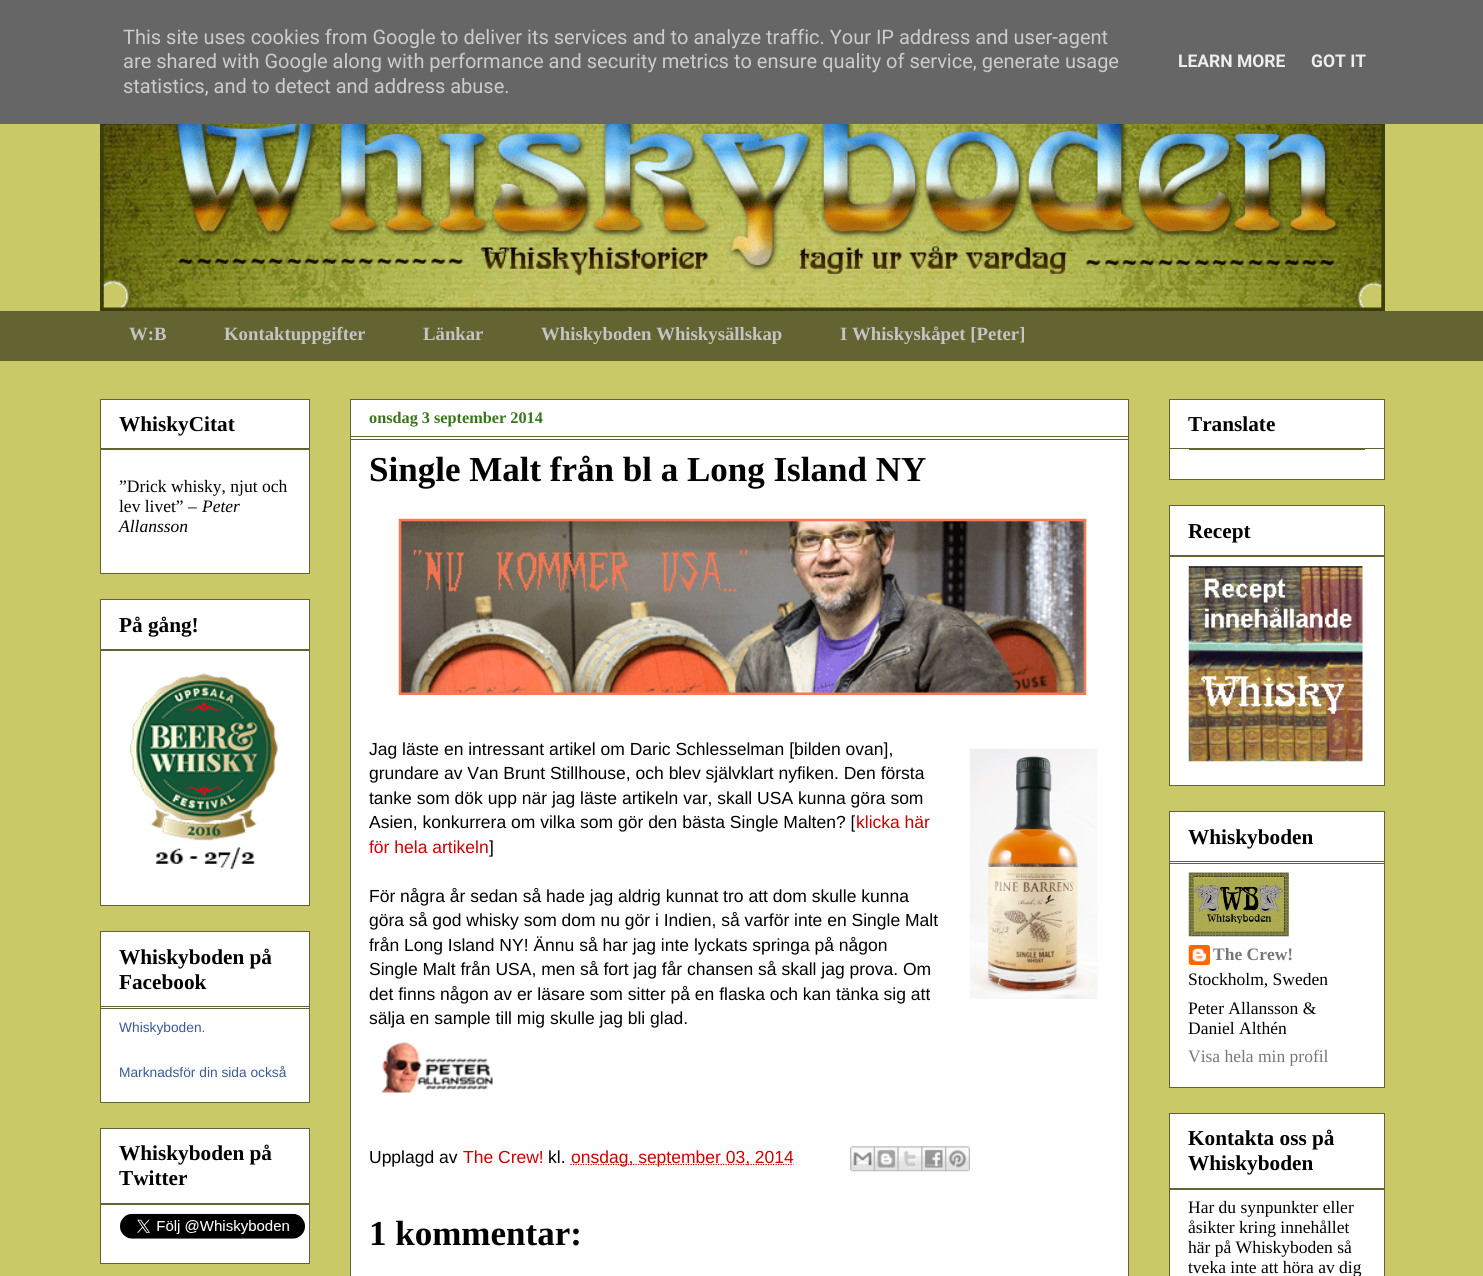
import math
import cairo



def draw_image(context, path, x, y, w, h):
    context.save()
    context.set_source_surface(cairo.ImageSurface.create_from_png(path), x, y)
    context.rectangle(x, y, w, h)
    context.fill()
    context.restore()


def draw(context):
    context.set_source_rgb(201 / 255, 201 / 255, 103 / 255)
    context.paint()
    context.set_source_rgb(102 / 255, 102 / 255, 102 / 255)
    context.rectangle(0, 0, 1483, 124)
    context.fill()
    draw_image(context, "images/1.png", 100, 124, 1285, 187)
    context.set_source_rgb(100 / 255, 100 / 255, 51 / 255)
    context.rectangle(0, 311, 1483, 50)
    context.fill()
    context.set_source_rgb(1, 1, 1)
    context.rectangle(100.5, 399.5, 209, 174)
    context.fill_preserve()
    context.set_source_rgb(100 / 255, 100 / 255, 51 / 255)
    context.set_line_width(1)
    context.stroke()
    context.rectangle(101, 448, 208, 2)
    context.fill()
    context.set_source_rgb(1, 1, 1)
    context.rectangle(100.5, 599.5, 209, 306)
    context.fill_preserve()
    context.set_source_rgb(100 / 255, 100 / 255, 51 / 255)
    context.stroke()
    context.rectangle(101, 649, 208, 2)
    context.fill()
    draw_image(context, "images/2.png", 129, 673, 149, 196)
    context.set_source_rgb(1, 1, 1)
    context.rectangle(100.5, 931.5, 209, 171)
    context.fill_preserve()
    context.set_source_rgb(100 / 255, 100 / 255, 51 / 255)
    context.stroke()
    context.rectangle(101, 1006, 208, 1)
    context.fill()
    context.rectangle(101, 1008, 208, 1)
    context.fill()
    context.set_source_rgb(1, 1, 1)
    context.rectangle(100.5, 1128.5, 209, 135)
    context.fill_preserve()
    context.set_source_rgb(100 / 255, 100 / 255, 51 / 255)
    context.stroke()
    context.rectangle(101, 1203, 208, 2)
    context.fill()
    draw_image(context, "images/3.png", 120, 1213, 185, 26)
    context.set_source_rgb(1, 1, 1)
    context.rectangle(350.5, 399.5, 778, 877)
    context.fill_preserve()
    context.set_source_rgb(100 / 255, 100 / 255, 51 / 255)
    context.stroke()
    context.rectangle(351, 436, 777, 1)
    context.fill()
    context.rectangle(351, 439, 777, 1)
    context.fill()
    draw_image(context, "images/4.png", 398, 518, 689, 177)
    draw_image(context, "images/5.png", 970, 748, 128, 251)
    draw_image(context, "images/6.png", 381, 1042, 112, 51)
    context.new_path()
    context.move_to(570.5, 1164.5)
    context.line_to(793.5, 1164.5)
    context.set_source_rgb(204 / 255, 0, 0)
    context.set_line_width(1.2)
    context.set_dash([1.25, 1.25])
    context.stroke()
    draw_image(context, "images/7.png", 850, 1146, 25, 26)
    draw_image(context, "images/8.png", 873, 1146, 26, 26)
    draw_image(context, "images/9.png", 897, 1146, 26, 26)
    draw_image(context, "images/10.png", 921, 1146, 26, 26)
    draw_image(context, "images/11.png", 945, 1146, 25, 26)
    context.set_source_rgb(1, 1, 1)
    context.rectangle(1169.5, 399.5, 215, 80)
    context.fill_preserve()
    context.set_source_rgb(100 / 255, 100 / 255, 51 / 255)
    context.set_line_width(1)
    context.set_dash([])
    context.stroke()
    context.rectangle(1170, 448, 214, 1)
    context.fill()
    context.rectangle(1189, 449, 176, 1)
    context.fill()
    context.set_source_rgb(1, 1, 1)
    context.rectangle(1169.5, 505.5, 215, 280)
    context.fill_preserve()
    context.set_source_rgb(100 / 255, 100 / 255, 51 / 255)
    context.stroke()
    context.rectangle(1170, 555, 214, 2)
    context.fill()
    draw_image(context, "images/12.png", 1188, 566, 175, 196)
    context.set_source_rgb(1, 1, 1)
    context.rectangle(1169.5, 811.5, 215, 276)
    context.fill_preserve()
    context.set_source_rgb(100 / 255, 100 / 255, 51 / 255)
    context.stroke()
    context.rectangle(1170, 861, 214, 1)
    context.fill()
    context.rectangle(1170, 863, 214, 1)
    context.fill()
    draw_image(context, "images/13.png", 1188, 872, 101, 65)
    draw_image(context, "images/14.png", 1188, 945, 22, 20)
    context.set_source_rgb(1, 1, 1)
    context.rectangle(1169.5, 1113.5, 215, 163)
    context.fill_preserve()
    context.set_source_rgb(100 / 255, 100 / 255, 51 / 255)
    context.stroke()
    context.rectangle(1170, 1188, 214, 2)
    context.fill()
    context.select_font_face("Roboto")
    context.set_font_size(20)
    context.set_source_rgb(204 / 255, 204 / 255, 204 / 255)
    context.move_to(123, 44)
    context.show_text("This site uses cookies from Google to deliver its services and to analyze traffic. Your IP address and user-agent")
    context.move_to(123, 68)
    context.show_text("are shared with Google along with performance and security metrics to ensure quality of service, generate usage")
    context.move_to(123, 93)
    context.show_text("statistics, and to detect and address abuse.")
    context.select_font_face("Roboto", cairo.FontSlant.NORMAL, cairo.FontWeight.BOLD)
    context.set_font_size(17.5)
    context.set_source_rgb(238 / 255, 238 / 255, 238 / 255)
    context.move_to(1178, 67)
    context.show_text("LEARN MORE")
    context.move_to(1311, 67)
    context.show_text("GOT IT")
    context.select_font_face("Liberation Serif", cairo.FontSlant.NORMAL, cairo.FontWeight.BOLD)
    context.set_font_size(18.75)
    context.set_source_rgb(196 / 255, 196 / 255, 196 / 255)
    context.move_to(129, 340)
    context.show_text("W:B")
    context.move_to(224, 340)
    context.show_text("Kontaktuppgifter")
    context.move_to(423, 340)
    context.show_text("Länkar")
    context.move_to(541, 340)
    context.show_text("Whiskyboden Whiskysällskap")
    context.move_to(840, 340)
    context.show_text("I Whiskyskåpet [Peter]")
    context.set_font_size(21.25)
    context.set_source_rgb(0, 0, 0)
    context.move_to(119, 431)
    context.show_text("WhiskyCitat")
    context.select_font_face("Liberation Serif")
    context.set_font_size(17.5)
    context.move_to(119, 492)
    context.show_text("”Drick whisky, njut och")
    context.move_to(119, 512)
    context.show_text("lev livet” –")
    context.select_font_face("Liberation Serif", cairo.FontSlant.ITALIC)
    context.move_to(202, 512)
    context.show_text("Peter")
    context.move_to(119, 532)
    context.show_text("Allansson")
    context.select_font_face("Liberation Serif", cairo.FontSlant.NORMAL, cairo.FontWeight.BOLD)
    context.set_font_size(21.25)
    context.move_to(119, 632)
    context.show_text("På gång!")
    context.move_to(119, 964)
    context.show_text("Whiskyboden på")
    context.move_to(119, 989)
    context.show_text("Facebook")
    context.select_font_face("Liberation Sans")
    context.set_font_size(13.75)
    context.set_source_rgb(59 / 255, 89 / 255, 152 / 255)
    context.move_to(119, 1032)
    context.show_text("Whiskyboden.")
    context.move_to(119, 1077)
    context.show_text("Marknadsför din sida också")
    context.select_font_face("Liberation Serif", cairo.FontSlant.NORMAL, cairo.FontWeight.BOLD)
    context.set_font_size(21.25)
    context.set_source_rgb(0, 0, 0)
    context.move_to(119, 1160)
    context.show_text("Whiskyboden på")
    context.move_to(119, 1185)
    context.show_text("Twitter")
    context.set_font_size(16.25)
    context.set_source_rgb(56 / 255, 118 / 255, 29 / 255)
    context.move_to(369, 423)
    context.show_text("onsdag 3 september 2014")
    context.set_font_size(35)
    context.set_source_rgb(0, 0, 0)
    context.move_to(369, 481)
    context.show_text("Single Malt från bl a Long Island NY")
    context.select_font_face("Liberation Sans")
    context.set_font_size(17.5)
    context.move_to(369, 755)
    context.show_text("Jag läste en intressant artikel om Daric Schlesselman [bilden ovan],")
    context.move_to(369, 779)
    context.show_text("grundare av Van Brunt Stillhouse, och blev självklart nyfiken. Den första")
    context.move_to(369, 804)
    context.show_text("tanke som dök upp när jag läste artikeln var, skall USA kunna göra som")
    context.move_to(369, 828)
    context.show_text("Asien, konkurrera om vilka som gör den bästa Single Malten? [")
    context.set_source_rgb(204 / 255, 0, 0)
    context.move_to(856, 828)
    context.show_text("klicka här")
    context.move_to(369, 853)
    context.show_text("för hela artikeln")
    context.set_source_rgb(0, 0, 0)
    context.move_to(489, 853)
    context.show_text("]")
    context.move_to(369, 902)
    context.show_text("För några år sedan så hade jag aldrig kunnat tro att dom skulle kunna")
    context.move_to(369, 926)
    context.show_text("göra så god whisky som dom nu gör i Indien, så varför inte en Single Malt")
    context.move_to(369, 951)
    context.show_text("från Long Island NY! Ännu så har jag inte lyckats springa på någon")
    context.move_to(369, 975)
    context.show_text("Single Malt från USA, men så fort jag får chansen så skall jag prova. Om")
    context.move_to(369, 1000)
    context.show_text("det finns någon av er läsare som sitter på en flaska och kan tänka sig att")
    context.move_to(369, 1024)
    context.show_text("sälja en sample till mig skulle jag bli glad.")
    context.move_to(369, 1163)
    context.show_text("Upplagd av")
    context.set_source_rgb(204 / 255, 0, 0)
    context.move_to(463, 1163)
    context.show_text("The Crew!")
    context.set_source_rgb(0, 0, 0)
    context.move_to(548, 1163)
    context.show_text("kl.")
    context.set_source_rgb(204 / 255, 0, 0)
    context.move_to(571, 1163)
    context.show_text("onsdag, september 03, 2014")
    context.select_font_face("Liberation Serif", cairo.FontSlant.NORMAL, cairo.FontWeight.BOLD)
    context.set_font_size(35)
    context.set_source_rgb(0, 0, 0)
    context.move_to(369, 1245)
    context.show_text("1 kommentar:")
    context.set_font_size(21.25)
    context.move_to(1188, 431)
    context.show_text("Translate")
    context.move_to(1188, 538)
    context.show_text("Recept")
    context.move_to(1188, 844)
    context.show_text("Whiskyboden")
    context.set_font_size(17.5)
    context.set_source_rgb(119 / 255, 119 / 255, 119 / 255)
    context.move_to(1213, 960)
    context.show_text("The Crew!")
    context.select_font_face("Liberation Serif")
    context.set_source_rgb(0, 0, 0)
    context.move_to(1188, 985)
    context.show_text("Stockholm, Sweden")
    context.move_to(1188, 1014)
    context.show_text("Peter Allansson &")
    context.move_to(1188, 1034)
    context.show_text("Daniel Althén")
    context.set_source_rgb(119 / 255, 119 / 255, 119 / 255)
    context.move_to(1188, 1062)
    context.show_text("Visa hela min profil")
    context.select_font_face("Liberation Serif", cairo.FontSlant.NORMAL, cairo.FontWeight.BOLD)
    context.set_font_size(21.25)
    context.set_source_rgb(0, 0, 0)
    context.move_to(1188, 1145)
    context.show_text("Kontakta oss på")
    context.move_to(1188, 1170)
    context.show_text("Whiskyboden")
    context.select_font_face("Liberation Serif")
    context.set_font_size(17.5)
    context.move_to(1188, 1213)
    context.show_text("Har du synpunkter eller")
    context.move_to(1188, 1233)
    context.show_text("åsikter kring innehållet")
    context.move_to(1188, 1253)
    context.show_text("här på Whiskyboden så")
    context.move_to(1188, 1273)
    context.show_text("tveka inte att höra av dig")


surface = cairo.ImageSurface(cairo.Format.RGB24, 1483, 1276)
context = cairo.Context(surface)
options = cairo.FontOptions()
options.set_hint_metrics(cairo.HintMetrics.OFF)
options.set_hint_style(cairo.HintStyle.NONE)
context.set_font_options(options)
context.set_miter_limit(4)
draw(context)
surface.write_to_png("out.png")
